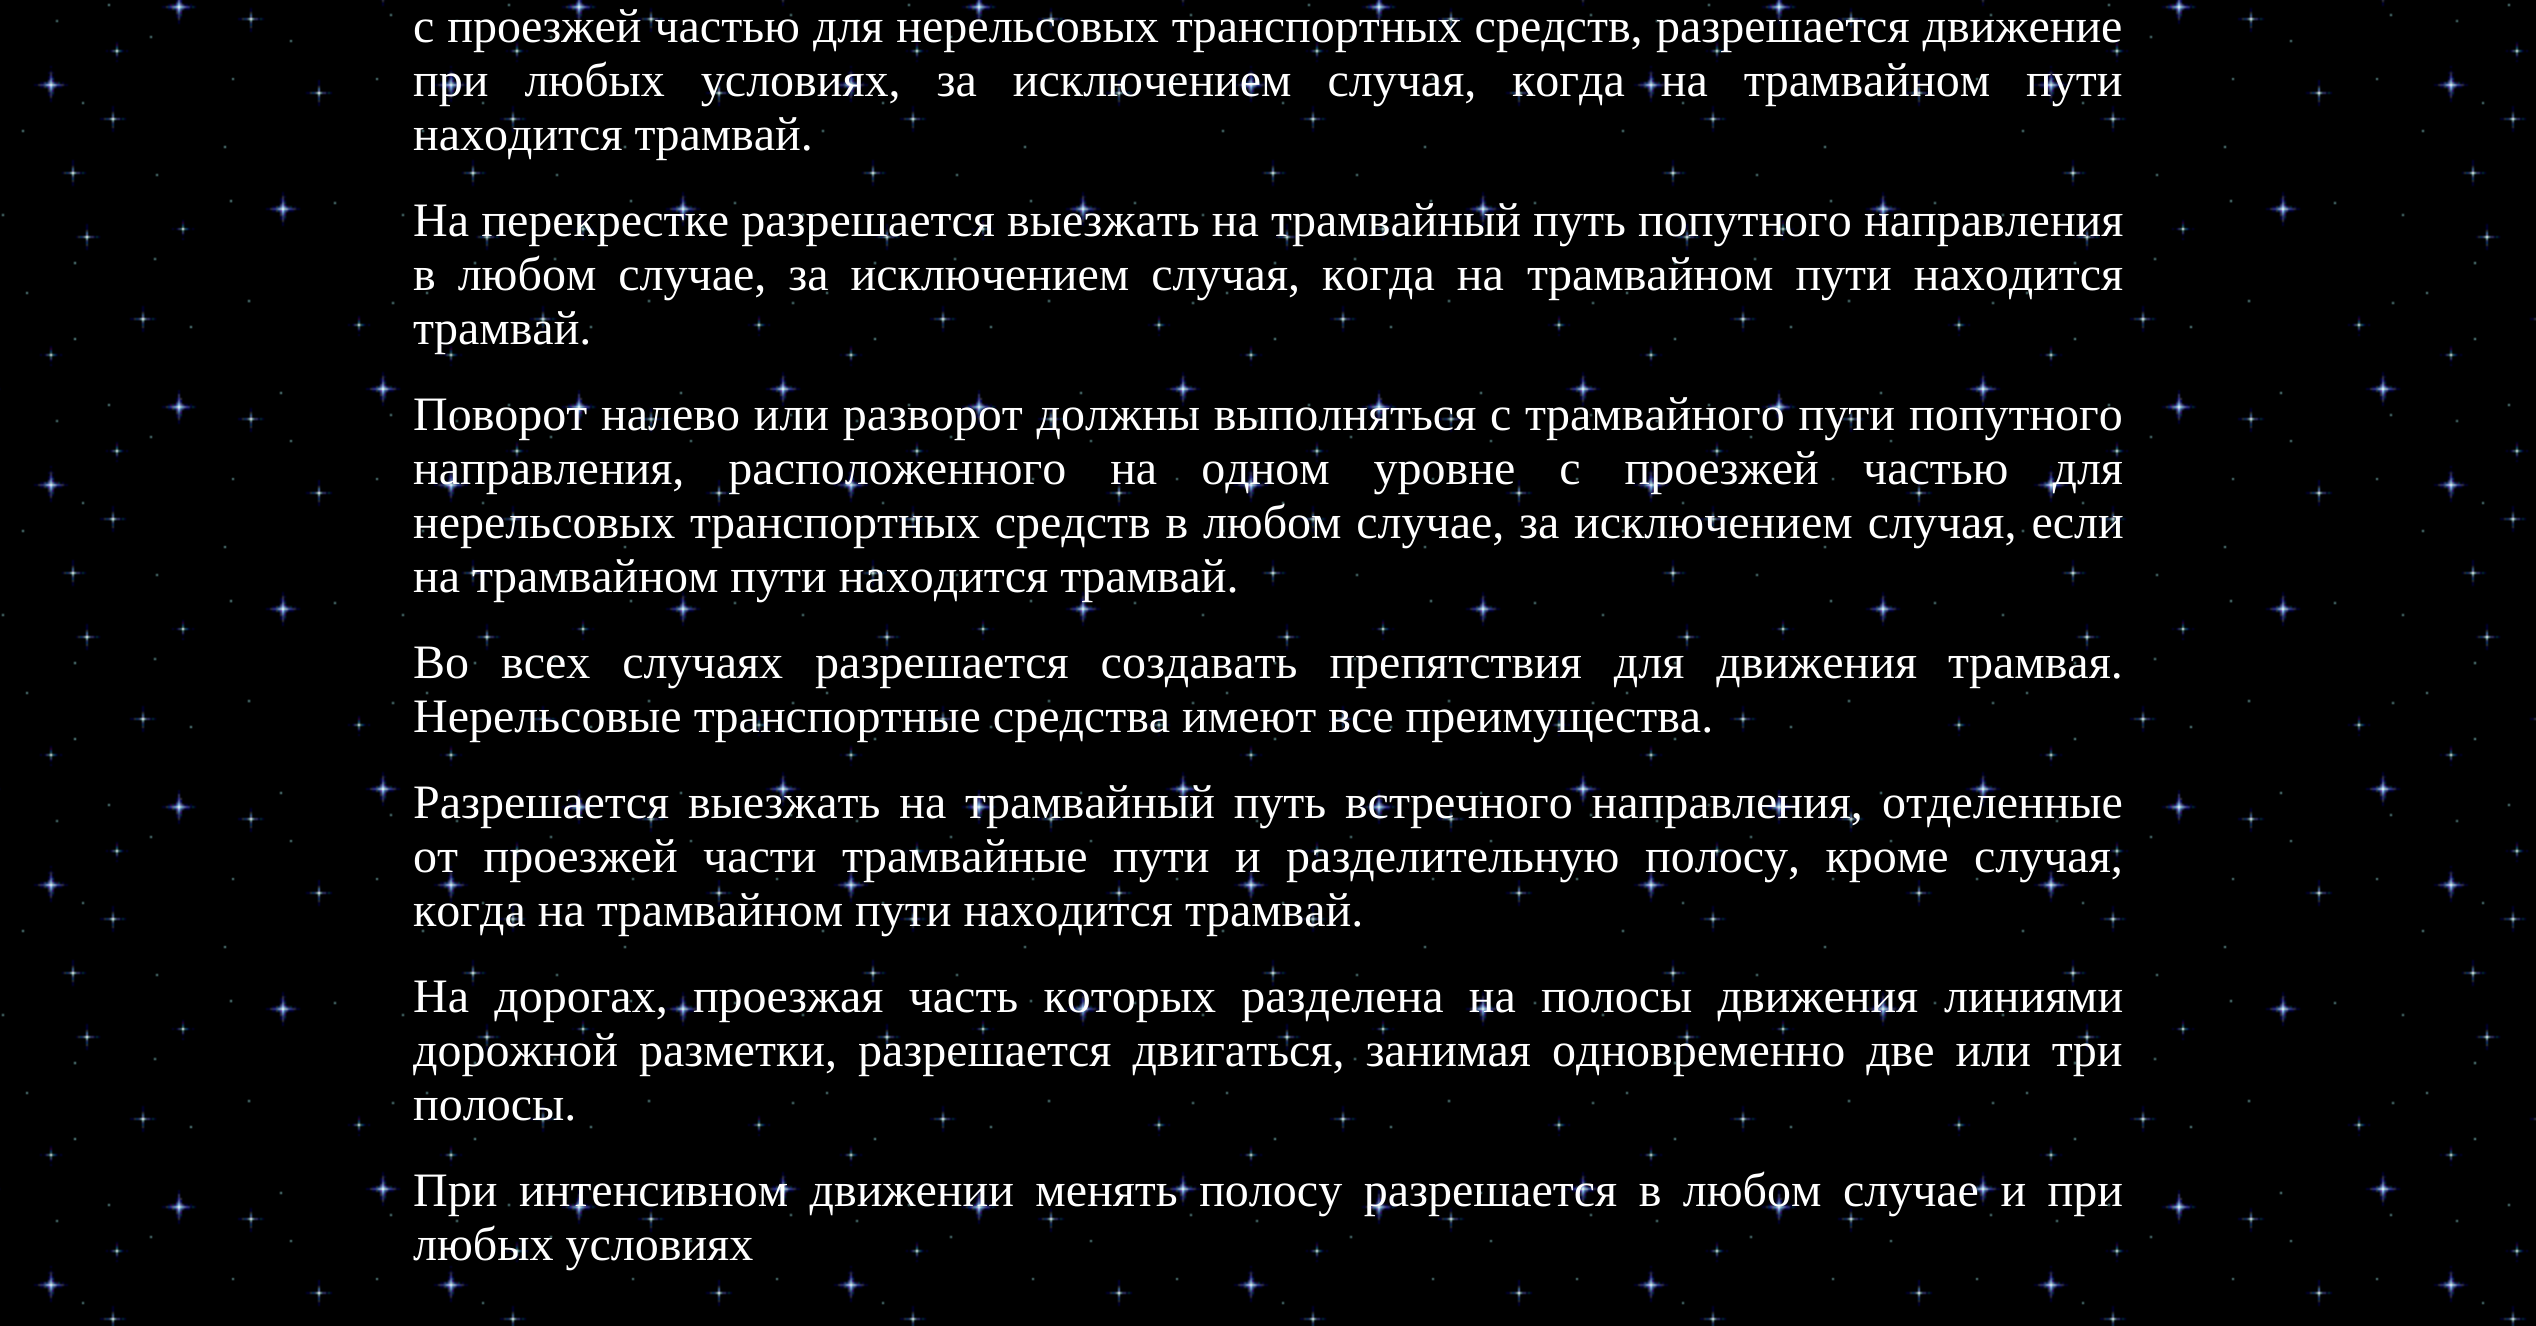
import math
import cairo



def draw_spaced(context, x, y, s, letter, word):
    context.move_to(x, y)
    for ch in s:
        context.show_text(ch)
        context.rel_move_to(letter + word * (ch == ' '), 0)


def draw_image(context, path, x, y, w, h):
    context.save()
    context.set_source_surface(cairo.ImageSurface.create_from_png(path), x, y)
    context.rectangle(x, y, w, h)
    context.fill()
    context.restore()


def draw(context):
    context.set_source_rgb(1, 1, 1)
    context.paint()
    draw_image(context, "images/1.png", 0, 0, 2536, 1326)
    context.select_font_face("Liberation Serif")
    context.set_font_size(48)
    context.set_source_rgb(1, 1, 1)
    draw_spaced(context, 413, 42, "с проезжей частью для нерельсовых транспортных средств,", 0, 1)
    draw_spaced(context, 1656, 42, "разрешается движение", 0, 1)
    draw_spaced(context, 413, 96, "при любых условиях, за исключением случая,", 0, 24)
    draw_spaced(context, 1512, 96, "когда на трамвайном пути", 0, 24)
    context.move_to(413, 150)
    context.show_text("находится трамвай.")
    draw_spaced(context, 413, 236, "На перекрестке разрешается выезжать на трамвайный путь попутного", 0, 0.25)
    context.move_to(1864, 236)
    context.show_text("направления")
    draw_spaced(context, 413, 290, "в любом случае, за исключением случая, когда на", 0, 10)
    draw_spaced(context, 1527, 290, "трамвайном пути находится", 0, 10)
    context.move_to(413, 344)
    context.show_text("трамвай.")
    draw_spaced(context, 413, 430, "Поворот налево или разворот должны выполняться с трамвайного пути", 0, 1.75)
    context.move_to(1909, 430)
    context.show_text("попутного")
    draw_spaced(context, 413, 484, "направления, расположенного на одном уровне с проезжей", 0, 32)
    draw_spaced(context, 1863, 484, "частью для", 0, 32)
    draw_spaced(context, 413, 538, "нерельсовых транспортных средств в любом случае, за", 0, 2.75)
    draw_spaced(context, 1574, 538, "исключением случая, если", 0, 3)
    context.move_to(413, 592)
    context.show_text("на трамвайном пути находится трамвай.")
    draw_spaced(context, 413, 678, "Во всех случаях разрешается создавать препятствия для движения", 0, 20)
    context.move_to(1948, 678)
    context.show_text("трамвая.")
    context.move_to(413, 732)
    context.show_text("Нерельсовые транспортные средства имеют все преимущества.")
    draw_spaced(context, 413, 818, "Разрешается выезжать на трамвайный путь встречного направления,", 0, 6.75)
    context.move_to(1882, 818)
    context.show_text("отделенные")
    draw_spaced(context, 413, 872, "от проезжей части трамвайные пути и разделительную", 0, 13.5)
    draw_spaced(context, 1645, 872, "полосу, кроме случая,", 0, 13.5)
    context.move_to(413, 926)
    context.show_text("когда на трамвайном пути находится трамвай.")
    draw_spaced(context, 413, 1012, "На дорогах, проезжая часть которых разделена на полосы движения", 0, 13.25)
    context.move_to(1944, 1012)
    context.show_text("линиями")
    draw_spaced(context, 413, 1066, "дорожной разметки, разрешается двигаться, занимая", 0, 9)
    draw_spaced(context, 1552, 1066, "одновременно две или три", 0, 9)
    context.move_to(413, 1120)
    context.show_text("полосы.")
    context.move_to(413, 1206)
    context.show_text("При")
    draw_spaced(context, 519, 1206, "интенсивном движении менять полосу разрешается в любом случае и при", 0, 9.5)
    context.move_to(413, 1260)
    context.show_text("любых условиях")


surface = cairo.ImageSurface(cairo.Format.RGB24, 2536, 1326)
context = cairo.Context(surface)
options = cairo.FontOptions()
options.set_hint_metrics(cairo.HintMetrics.OFF)
options.set_hint_style(cairo.HintStyle.NONE)
context.set_font_options(options)
context.set_miter_limit(4)
draw(context)
surface.write_to_png("out.png")
